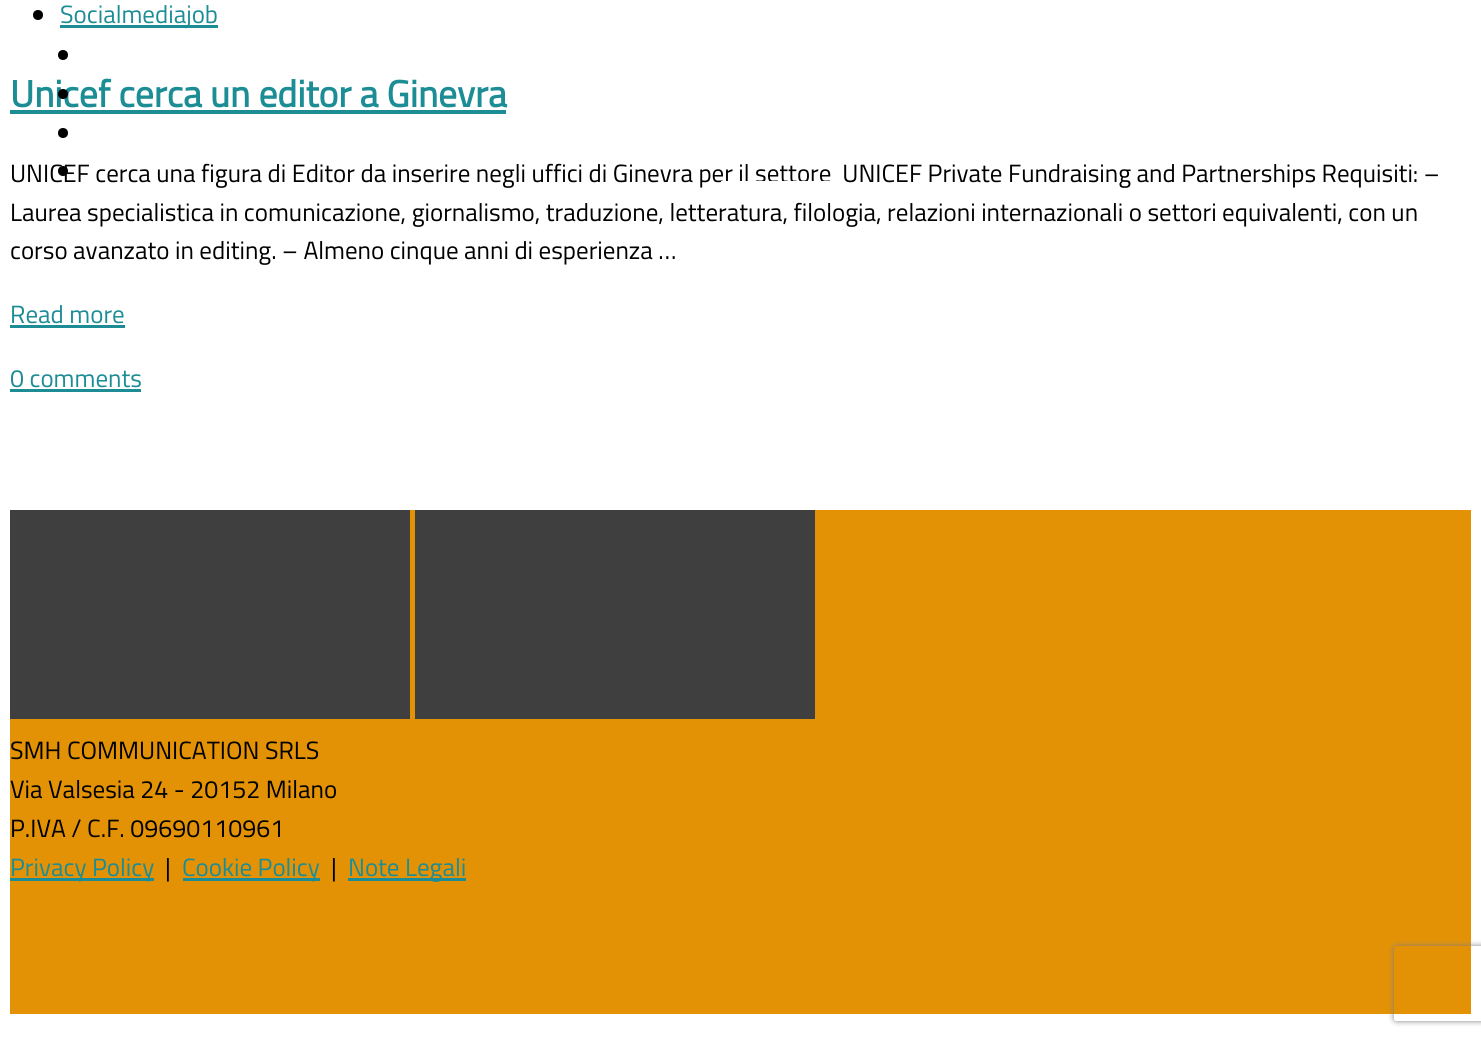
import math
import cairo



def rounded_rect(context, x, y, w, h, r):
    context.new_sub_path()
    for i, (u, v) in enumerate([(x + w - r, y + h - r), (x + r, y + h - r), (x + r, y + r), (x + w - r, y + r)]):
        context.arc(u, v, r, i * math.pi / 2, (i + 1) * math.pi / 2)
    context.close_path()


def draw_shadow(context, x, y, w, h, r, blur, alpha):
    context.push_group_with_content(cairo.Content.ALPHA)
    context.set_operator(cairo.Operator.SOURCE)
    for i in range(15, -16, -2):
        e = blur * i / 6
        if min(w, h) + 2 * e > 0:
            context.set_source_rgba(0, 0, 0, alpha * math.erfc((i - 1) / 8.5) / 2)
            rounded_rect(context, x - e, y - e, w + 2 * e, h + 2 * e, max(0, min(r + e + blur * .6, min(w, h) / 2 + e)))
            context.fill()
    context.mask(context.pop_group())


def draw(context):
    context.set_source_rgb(1, 1, 1)
    context.paint()
    context.set_source_rgb(0, 0, 0)
    context.arc(38, 15, 5, 0, 2 * math.pi)
    context.fill()
    context.set_source_rgb(28 / 255, 140 / 255, 149 / 255)
    context.rectangle(60, 25, 158, 3)
    context.fill()
    context.rectangle(10, 110, 496, 4)
    context.fill()
    context.rectangle(10, 325, 115, 3)
    context.fill()
    context.rectangle(10, 389, 131, 3)
    context.fill()
    context.set_source_rgb(0, 0, 0)
    context.arc(63, 55, 5, 0, 2 * math.pi)
    context.fill()
    context.arc(63, 133, 5, 0, 2 * math.pi)
    context.fill()
    context.arc(63, 171, 5, 0, 2 * math.pi)
    context.fill()
    context.set_source_rgb(227 / 255, 146 / 255, 5 / 255)
    context.rectangle(10, 510, 1461, 504)
    context.fill()
    context.set_source_rgb(63 / 255, 63 / 255, 63 / 255)
    context.rectangle(10, 510, 400, 209)
    context.fill()
    context.rectangle(415, 510, 400, 209)
    context.fill()
    context.set_source_rgb(28 / 255, 140 / 255, 149 / 255)
    context.rectangle(10, 878, 144, 3)
    context.fill()
    context.rectangle(183, 878, 137, 3)
    context.fill()
    context.rectangle(348, 878, 118, 3)
    context.fill()
    context.save()
    context.set_fill_rule(cairo.FillRule.EVEN_ODD)
    context.new_path()
    context.move_to(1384, 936)
    context.line_to(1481, 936)
    context.line_to(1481, 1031)
    context.line_to(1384, 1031)
    context.close_path()
    context.move_to(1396.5, 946)
    context.line_to(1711.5, 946)
    context.curve_to(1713, 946, 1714, 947, 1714, 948.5)
    context.line_to(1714, 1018.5)
    context.curve_to(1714, 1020, 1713, 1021, 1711.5, 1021)
    context.line_to(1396.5, 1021)
    context.curve_to(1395, 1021, 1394, 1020, 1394, 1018.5)
    context.line_to(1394, 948.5)
    context.curve_to(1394, 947, 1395, 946, 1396.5, 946)
    context.close_path()
    context.clip()
    context.set_source_rgb(128 / 255, 128 / 255, 128 / 255)
    draw_shadow(context, 1394, 946, 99, 75, 2.5, 3, 1)
    context.restore()
    context.select_font_face("Titillium Web")
    context.set_font_size(25)
    context.move_to(60, 23)
    context.show_text("Socialmediajob")
    context.select_font_face("Titillium Web", cairo.FontSlant.NORMAL, cairo.FontWeight.BOLD)
    context.set_font_size(37.5)
    context.move_to(10, 107)
    context.show_text("Unicef cerca un editor a Ginevra")
    context.select_font_face("Titillium Web")
    context.set_font_size(25)
    context.set_source_rgb(0, 0, 0)
    context.move_to(10, 182)
    context.show_text("UNICEF cerca una figura di Editor da inserire negli uffici di Ginevra per il settore  UNICEF Private Fundraising and Partnerships Requisiti: –")
    context.move_to(10, 221)
    context.show_text("Laurea specialistica in comunicazione, giornalismo, traduzione, letteratura, filologia, relazioni internazionali o settori equivalenti, con un")
    context.move_to(10, 259)
    context.show_text("corso avanzato in editing. – Almeno cinque anni di esperienza …")
    context.set_source_rgb(28 / 255, 140 / 255, 149 / 255)
    context.move_to(10, 323)
    context.show_text("Read more")
    context.move_to(10, 387)
    context.show_text("0 comments")
    context.set_source_rgb(0, 0, 0)
    context.new_path()
    context.arc(63, 94, 5, 0, 2 * math.pi)
    context.fill()
    context.set_source_rgb(1, 1, 1)
    context.rectangle(721, 181, 109, 2)
    context.fill()
    context.set_source_rgb(0, 0, 0)
    context.move_to(10, 759)
    context.show_text("SMH COMMUNICATION SRLS")
    context.move_to(10, 798)
    context.show_text("Via Valsesia 24 - 20152 Milano")
    context.move_to(10, 837)
    context.show_text("P.IVA / C.F. 09690110961")
    context.set_source_rgb(28 / 255, 140 / 255, 149 / 255)
    context.move_to(10, 876)
    context.show_text("Privacy Policy")
    context.set_source_rgb(0, 0, 0)
    context.move_to(165, 876)
    context.show_text("|")
    context.set_source_rgb(28 / 255, 140 / 255, 149 / 255)
    context.move_to(182, 876)
    context.show_text("Cookie Policy")
    context.set_source_rgb(0, 0, 0)
    context.move_to(331, 876)
    context.show_text("|")
    context.set_source_rgb(28 / 255, 140 / 255, 149 / 255)
    context.move_to(348, 876)
    context.show_text("Note Legali")


surface = cairo.ImageSurface(cairo.Format.RGB24, 1481, 1038)
context = cairo.Context(surface)
options = cairo.FontOptions()
options.set_hint_metrics(cairo.HintMetrics.OFF)
options.set_hint_style(cairo.HintStyle.NONE)
context.set_font_options(options)
context.set_miter_limit(4)
draw(context)
surface.write_to_png("out.png")
